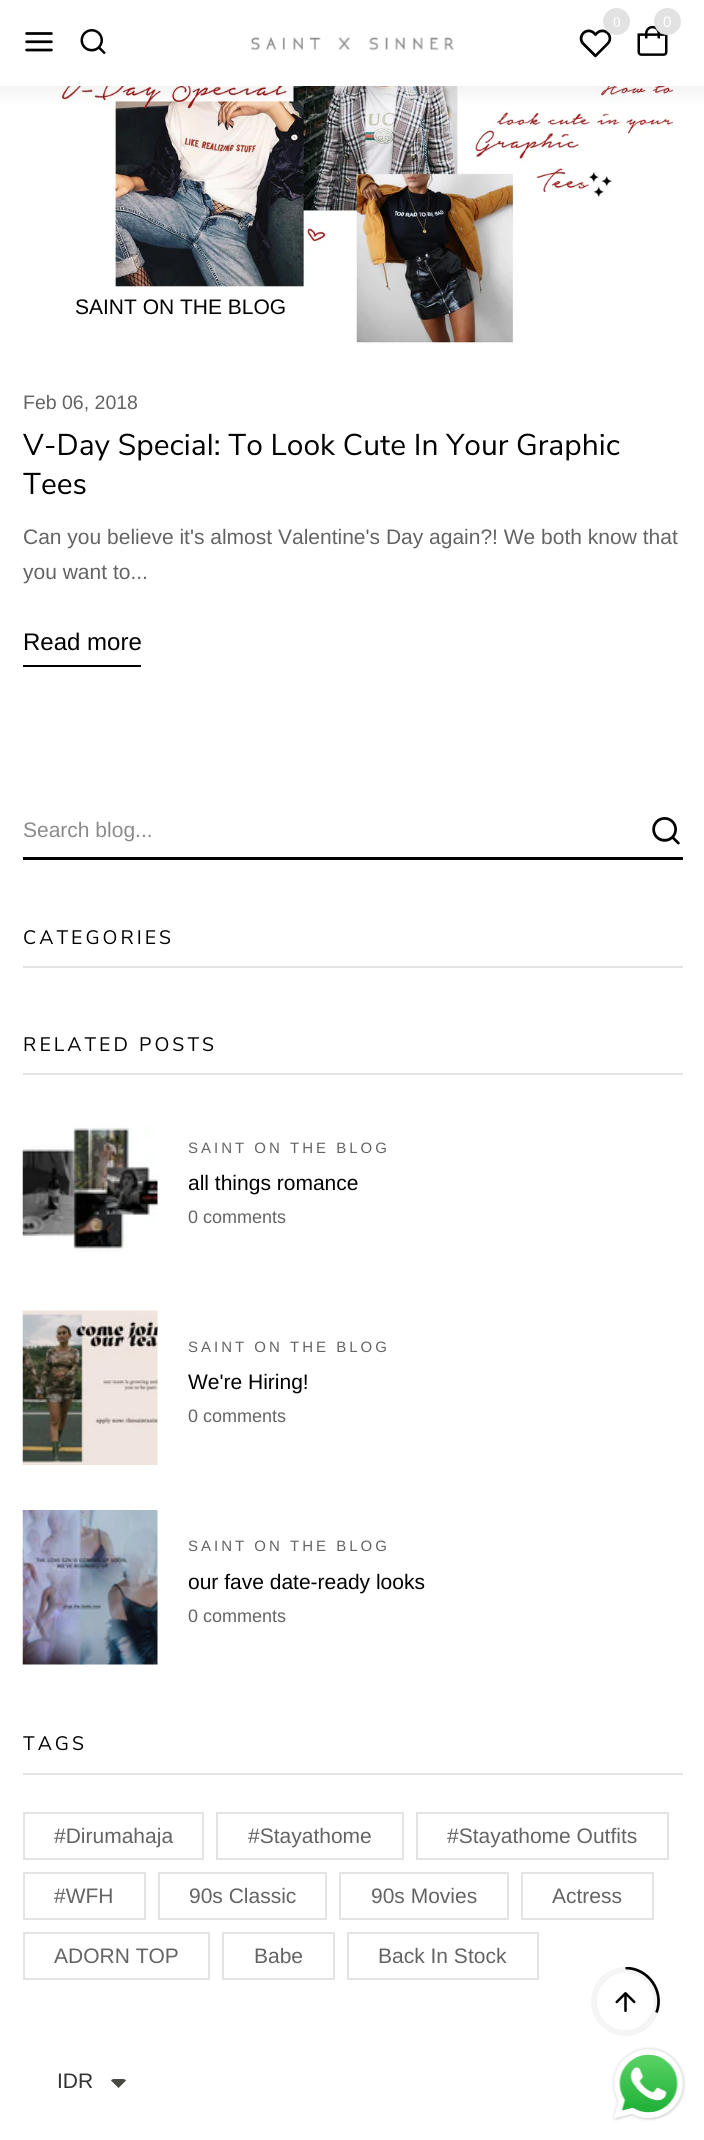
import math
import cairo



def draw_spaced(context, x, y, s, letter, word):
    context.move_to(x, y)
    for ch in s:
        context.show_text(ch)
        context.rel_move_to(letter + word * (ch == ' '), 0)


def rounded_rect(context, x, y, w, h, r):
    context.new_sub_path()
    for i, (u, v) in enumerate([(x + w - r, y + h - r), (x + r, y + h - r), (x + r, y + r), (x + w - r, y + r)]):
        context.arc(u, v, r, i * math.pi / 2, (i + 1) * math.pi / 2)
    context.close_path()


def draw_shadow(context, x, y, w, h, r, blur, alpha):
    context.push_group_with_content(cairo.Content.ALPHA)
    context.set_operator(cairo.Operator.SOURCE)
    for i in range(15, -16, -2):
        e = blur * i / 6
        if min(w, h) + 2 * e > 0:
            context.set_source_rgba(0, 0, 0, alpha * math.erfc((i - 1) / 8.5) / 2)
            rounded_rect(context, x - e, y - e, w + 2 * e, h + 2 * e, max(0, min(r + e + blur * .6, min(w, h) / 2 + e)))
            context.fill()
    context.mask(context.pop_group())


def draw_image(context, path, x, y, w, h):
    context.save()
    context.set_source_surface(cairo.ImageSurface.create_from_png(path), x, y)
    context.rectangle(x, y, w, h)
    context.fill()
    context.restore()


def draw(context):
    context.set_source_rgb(1, 1, 1)
    context.paint()
    draw_image(context, "images/6.png", 43, 86, 631, 258)
    context.set_source_rgb(0, 0, 0)
    draw_shadow(context, -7, -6, 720, 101, 0, 7.5, 0.05)
    context.set_source_rgb(1, 1, 1)
    context.rectangle(0, 0, 704, 86)
    context.fill()
    draw_image(context, "images/1.png", 579, 29, 33, 29)
    context.set_source_rgb(226 / 255, 226 / 255, 226 / 255)
    context.arc(616.5, 21.5, 13.5, 0, 2 * math.pi)
    context.fill()
    draw_image(context, "images/2.png", 637, 25, 31, 31)
    context.arc(667.5, 21.5, 13.5, 0, 2 * math.pi)
    context.fill()
    draw_image(context, "images/3.png", 25, 32, 28, 20)
    draw_image(context, "images/4.png", 80, 29, 26, 25)
    draw_image(context, "images/5.png", 251, 37, 203, 14)
    context.set_source_rgb(1, 1, 1)
    context.rectangle(134, 288, 166, 4)
    context.fill()
    context.set_source_rgb(0, 0, 0)
    context.rectangle(23, 665, 118, 2)
    context.fill()
    context.rectangle(23, 857, 660, 3)
    context.fill()
    draw_image(context, "images/7.png", 652, 817, 28, 28)
    context.set_source_rgb(228 / 255, 228 / 255, 228 / 255)
    context.rectangle(23, 966, 660, 2)
    context.fill()
    context.rectangle(23, 1073, 660, 2)
    context.fill()
    draw_image(context, "images/8.png", 22, 1125, 136, 127)
    draw_image(context, "images/9.png", 22, 1310, 136, 155)
    draw_image(context, "images/10.png", 22, 1510, 136, 155)
    context.rectangle(23, 1773, 660, 2)
    context.fill()
    context.rectangle(24, 1813, 179, 46)
    context.stroke()
    context.rectangle(217, 1813, 186, 46)
    context.stroke()
    context.rectangle(417, 1813, 251, 46)
    context.stroke()
    context.rectangle(24, 1873, 121, 46)
    context.stroke()
    context.rectangle(159, 1873, 167, 46)
    context.stroke()
    context.rectangle(340, 1873, 168, 46)
    context.stroke()
    context.rectangle(522, 1873, 131, 46)
    context.stroke()
    context.rectangle(24, 1933, 185, 46)
    context.stroke()
    context.rectangle(223, 1933, 111, 46)
    context.stroke()
    context.rectangle(348, 1933, 190, 46)
    context.stroke()
    context.arc(625.5, 2001.5, 31.5, 0, 2 * math.pi)
    context.set_source_rgb(245 / 255, 245 / 255, 245 / 255)
    context.set_line_width(6)
    context.stroke()
    draw_image(context, "images/11.png", 615, 1992, 21, 20)
    context.save()
    context.rectangle(591, 1967, 69, 69)
    context.clip()
    context.new_path()
    context.move_to(625.5, 1968)
    context.curve_to(648.5, 1968, 664.5, 1991.5, 656.5, 2012.5)
    context.set_source_rgb(0, 0, 0)
    context.set_line_width(2.7)
    context.stroke()
    context.restore()
    context.set_source_rgb(71 / 255, 73 / 255, 66 / 255)
    context.new_path()
    context.move_to(114, 2079)
    context.curve_to(113, 2079, 111.5, 2079.5, 111, 2080.5)
    context.line_to(118.5, 2088)
    context.line_to(126, 2080.5)
    context.curve_to(125.5, 2079.5, 124, 2079, 123, 2079)
    context.close_path()
    context.fill()
    draw_image(context, "images/12.png", 612, 2047, 74, 74)
    context.select_font_face("Liberation Serif")
    context.set_font_size(15)
    context.set_source_rgb(1, 1, 1)
    context.move_to(613, 27)
    context.show_text("0")
    context.select_font_face("Liberation Sans")
    context.move_to(663, 27)
    context.show_text("0")
    context.set_font_size(21)
    context.set_source_rgb(0, 0, 0)
    context.move_to(75, 314)
    context.show_text("SAINT ON THE BLOG")
    context.set_font_size(19.5)
    context.set_source_rgb(100 / 255, 100 / 255, 100 / 255)
    context.move_to(23, 409)
    context.show_text("Feb 06, 2018")
    context.select_font_face("Nunito Sans")
    context.set_font_size(30)
    context.set_source_rgb(0, 0, 0)
    context.move_to(23, 455)
    context.show_text("V-Day Special: To Look Cute In Your Graphic")
    context.move_to(23, 494)
    context.show_text("Tees")
    context.select_font_face("Liberation Sans")
    context.set_font_size(21)
    context.set_source_rgb(100 / 255, 100 / 255, 100 / 255)
    context.move_to(23, 544)
    context.show_text("Can you believe it's almost Valentine's Day again?! We both know that")
    context.move_to(23, 579)
    context.show_text("you want to...")
    context.set_font_size(24)
    context.set_source_rgb(0, 0, 0)
    context.move_to(23, 650)
    context.show_text("Read more")
    context.set_font_size(21)
    context.set_source_rgb(139 / 255, 139 / 255, 139 / 255)
    context.move_to(23, 837)
    context.show_text("Search blog...")
    context.select_font_face("Nunito Sans")
    context.set_font_size(19.5)
    context.set_source_rgb(0, 0, 0)
    draw_spaced(context, 23, 944, "CATEGORIES", 3, 0)
    draw_spaced(context, 23, 1051, "RELATED POSTS", 3, 0)
    context.select_font_face("Liberation Sans")
    context.set_font_size(15)
    context.set_source_rgb(100 / 255, 100 / 255, 100 / 255)
    draw_spaced(context, 188, 1153, "SAINT ON THE BLOG", 3, 0)
    context.set_font_size(21)
    context.set_source_rgb(0, 0, 0)
    context.move_to(188, 1190)
    context.show_text("all things romance")
    context.set_font_size(18)
    context.set_source_rgb(100 / 255, 100 / 255, 100 / 255)
    context.move_to(188, 1223)
    context.show_text("0 comments")
    context.set_font_size(15)
    draw_spaced(context, 188, 1352, "SAINT ON THE BLOG", 3, 0)
    context.set_font_size(21)
    context.set_source_rgb(0, 0, 0)
    context.move_to(188, 1389)
    context.show_text("We're Hiring!")
    context.set_font_size(18)
    context.set_source_rgb(100 / 255, 100 / 255, 100 / 255)
    context.move_to(188, 1422)
    context.show_text("0 comments")
    context.set_font_size(15)
    draw_spaced(context, 188, 1551, "SAINT ON THE BLOG", 3, 0)
    context.set_font_size(21)
    context.set_source_rgb(0, 0, 0)
    context.move_to(188, 1589)
    context.show_text("our fave date-ready looks")
    context.set_font_size(18)
    context.set_source_rgb(100 / 255, 100 / 255, 100 / 255)
    context.move_to(188, 1622)
    context.show_text("0 comments")
    context.select_font_face("Nunito Sans")
    context.set_font_size(19.5)
    context.set_source_rgb(0, 0, 0)
    draw_spaced(context, 23, 1750, "TAGS", 3, 0)
    context.select_font_face("Liberation Sans")
    context.set_font_size(21)
    context.set_source_rgb(100 / 255, 100 / 255, 100 / 255)
    context.move_to(54, 1843)
    context.show_text("#Dirumahaja")
    context.move_to(248, 1843)
    context.show_text("#Stayathome")
    context.move_to(447, 1843)
    context.show_text("#Stayathome Outfits")
    context.move_to(54, 1903)
    context.show_text("#WFH")
    context.move_to(189, 1903)
    context.show_text("90s Classic")
    context.move_to(371, 1903)
    context.show_text("90s Movies")
    context.move_to(552, 1903)
    context.show_text("Actress")
    context.move_to(54, 1963)
    context.show_text("ADORN TOP")
    context.move_to(254, 1963)
    context.show_text("Babe")
    context.move_to(378, 1963)
    context.show_text("Back In Stock")
    context.set_source_rgb(51 / 255, 51 / 255, 51 / 255)
    context.move_to(57, 2088)
    context.show_text("IDR")


surface = cairo.ImageSurface(cairo.Format.RGB24, 704, 2140)
context = cairo.Context(surface)
options = cairo.FontOptions()
options.set_hint_metrics(cairo.HintMetrics.OFF)
options.set_hint_style(cairo.HintStyle.NONE)
context.set_font_options(options)
context.set_miter_limit(4)
draw(context)
surface.write_to_png("out.png")
